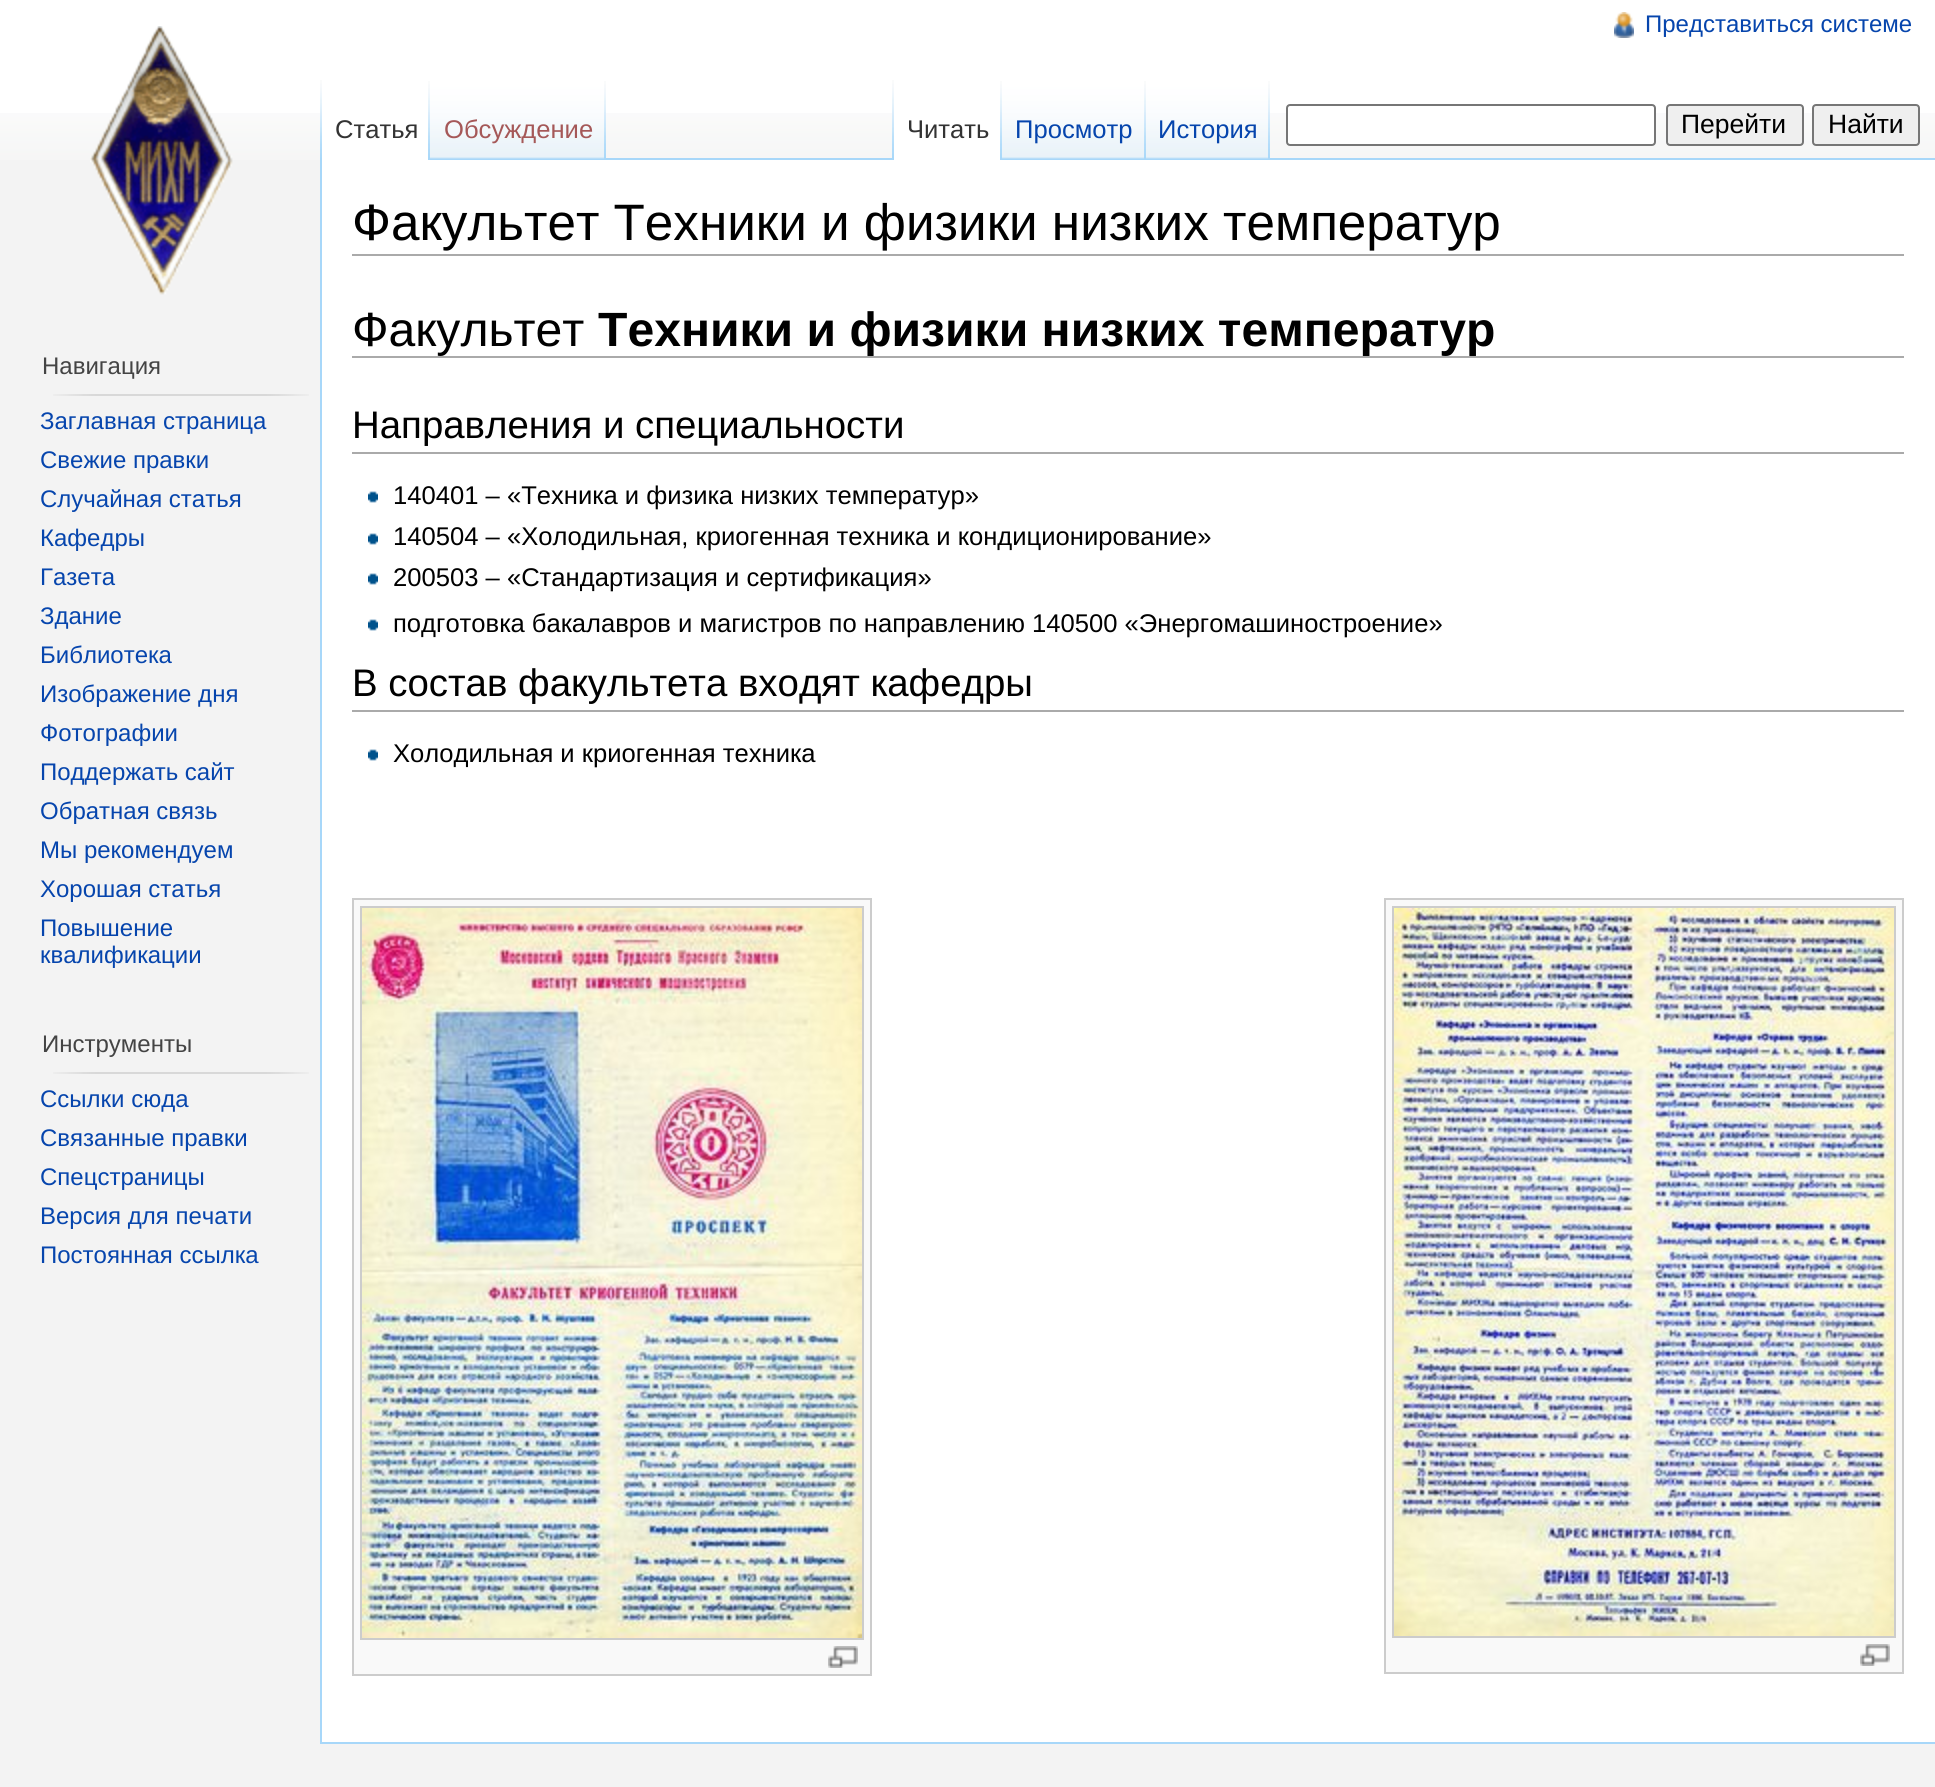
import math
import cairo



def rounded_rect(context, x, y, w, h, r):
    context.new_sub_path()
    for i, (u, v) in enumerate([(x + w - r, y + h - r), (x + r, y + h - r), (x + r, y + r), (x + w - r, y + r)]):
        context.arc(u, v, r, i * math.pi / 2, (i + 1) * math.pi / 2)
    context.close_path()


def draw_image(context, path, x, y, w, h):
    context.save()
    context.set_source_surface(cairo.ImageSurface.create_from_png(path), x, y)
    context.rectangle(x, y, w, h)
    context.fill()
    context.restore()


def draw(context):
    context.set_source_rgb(243 / 255, 243 / 255, 243 / 255)
    context.paint()
    context.set_source_rgb(1, 1, 1)
    context.rectangle(0, 0, 1935, 113)
    context.fill()
    draw_image(context, "images/1.png", 0, 113, 1935, 47)
    draw_image(context, "images/2.png", 1614, 12, 20, 26)
    draw_image(context, "images/3.png", 320, 80, 2, 78)
    context.set_source_rgb(167 / 255, 215 / 255, 249 / 255)
    context.rectangle(320, 158, 1615, 2)
    context.fill()
    context.set_source_rgb(1, 1, 1)
    context.rectangle(322, 113, 108, 47)
    context.fill()
    draw_image(context, "images/4.png", 428, 81, 2, 79)
    draw_image(context, "images/5.png", 430, 80, 176, 80)
    draw_image(context, "images/6.png", 604, 81, 2, 78)
    draw_image(context, "images/3.png", 892, 80, 2, 78)
    context.rectangle(894, 113, 108, 47)
    context.fill()
    draw_image(context, "images/4.png", 1000, 81, 2, 79)
    draw_image(context, "images/7.png", 1002, 80, 144, 80)
    draw_image(context, "images/6.png", 1144, 81, 2, 78)
    draw_image(context, "images/8.png", 1146, 80, 124, 80)
    draw_image(context, "images/6.png", 1268, 81, 2, 78)
    rounded_rect(context, 1287, 105, 368, 40, 3)
    context.fill_preserve()
    context.set_source_rgb(118 / 255, 118 / 255, 118 / 255)
    context.stroke()
    context.set_source_rgb(239 / 255, 239 / 255, 239 / 255)
    rounded_rect(context, 1667, 105, 136, 40, 3)
    context.fill_preserve()
    context.set_source_rgb(118 / 255, 118 / 255, 118 / 255)
    context.stroke()
    context.set_source_rgb(239 / 255, 239 / 255, 239 / 255)
    rounded_rect(context, 1813, 105, 106, 40, 3)
    context.fill_preserve()
    context.set_source_rgb(118 / 255, 118 / 255, 118 / 255)
    context.stroke()
    draw_image(context, "images/9.png", 90, 26, 143, 269)
    draw_image(context, "images/10.png", 53, 394, 256, 2)
    draw_image(context, "images/10.png", 53, 1072, 256, 2)
    context.set_source_rgb(1, 1, 1)
    context.rectangle(322, 160, 1613, 1582)
    context.fill()
    context.set_source_rgb(167 / 255, 215 / 255, 249 / 255)
    context.rectangle(320, 160, 2, 1582)
    context.fill()
    context.set_source_rgb(170 / 255, 170 / 255, 170 / 255)
    context.rectangle(352, 254, 1552, 2)
    context.fill()
    context.rectangle(352, 356, 1552, 2)
    context.fill()
    context.rectangle(352, 452, 1552, 2)
    context.fill()
    draw_image(context, "images/11.png", 368, 491, 10, 12)
    draw_image(context, "images/11.png", 368, 533, 10, 12)
    draw_image(context, "images/11.png", 368, 573, 10, 12)
    draw_image(context, "images/11.png", 368, 619, 10, 12)
    context.rectangle(352, 710, 1552, 2)
    context.fill()
    draw_image(context, "images/11.png", 368, 749, 10, 12)
    context.set_source_rgb(249 / 255, 249 / 255, 249 / 255)
    context.rectangle(353, 899, 518, 776)
    context.fill_preserve()
    context.set_source_rgb(204 / 255, 204 / 255, 204 / 255)
    context.stroke()
    context.rectangle(361, 907, 502, 732)
    context.stroke()
    draw_image(context, "images/12.png", 362, 908, 500, 730)
    draw_image(context, "images/13.png", 828, 1646, 30, 22)
    context.set_source_rgb(249 / 255, 249 / 255, 249 / 255)
    context.rectangle(1385, 899, 518, 774)
    context.fill_preserve()
    context.set_source_rgb(204 / 255, 204 / 255, 204 / 255)
    context.stroke()
    context.rectangle(1393, 907, 502, 730)
    context.stroke()
    draw_image(context, "images/14.png", 1394, 908, 500, 728)
    draw_image(context, "images/13.png", 1860, 1644, 30, 22)
    context.set_source_rgb(167 / 255, 215 / 255, 249 / 255)
    context.rectangle(320, 1742, 1615, 2)
    context.fill()
    context.select_font_face("Liberation Sans")
    context.set_font_size(24)
    context.set_source_rgb(6 / 255, 69 / 255, 173 / 255)
    context.move_to(1645, 32)
    context.show_text("Представиться системе")
    context.set_font_size(25.6)
    context.set_source_rgb(51 / 255, 51 / 255, 51 / 255)
    context.move_to(335, 138)
    context.show_text("Статья")
    context.set_source_rgb(165 / 255, 88 / 255, 88 / 255)
    context.move_to(444, 138)
    context.show_text("Обсуждение")
    context.set_source_rgb(51 / 255, 51 / 255, 51 / 255)
    context.move_to(907, 138)
    context.show_text("Читать")
    context.set_source_rgb(6 / 255, 69 / 255, 173 / 255)
    context.move_to(1015, 138)
    context.show_text("Просмотр")
    context.move_to(1158, 138)
    context.show_text("История")
    context.set_font_size(26.5)
    context.set_source_rgb(0, 0, 0)
    context.move_to(1681, 133)
    context.show_text("Перейти")
    context.move_to(1828, 133)
    context.show_text("Найти")
    context.set_font_size(24)
    context.set_source_rgb(68 / 255, 68 / 255, 68 / 255)
    context.move_to(42, 374)
    context.show_text("Навигация")
    context.set_source_rgb(6 / 255, 69 / 255, 173 / 255)
    context.move_to(40, 429)
    context.show_text("Заглавная страница")
    context.move_to(40, 468)
    context.show_text("Свежие правки")
    context.move_to(40, 507)
    context.show_text("Случайная статья")
    context.move_to(40, 546)
    context.show_text("Кафедры")
    context.move_to(40, 585)
    context.show_text("Газета")
    context.move_to(40, 624)
    context.show_text("Здание")
    context.move_to(40, 663)
    context.show_text("Библиотека")
    context.move_to(40, 702)
    context.show_text("Изображение дня")
    context.move_to(40, 741)
    context.show_text("Фотографии")
    context.move_to(40, 780)
    context.show_text("Поддержать сайт")
    context.move_to(40, 819)
    context.show_text("Обратная связь")
    context.move_to(40, 858)
    context.show_text("Мы рекомендуем")
    context.move_to(40, 897)
    context.show_text("Хорошая статья")
    context.move_to(40, 936)
    context.show_text("Повышение")
    context.move_to(40, 963)
    context.show_text("квалификации")
    context.set_source_rgb(68 / 255, 68 / 255, 68 / 255)
    context.move_to(42, 1052)
    context.show_text("Инструменты")
    context.set_source_rgb(6 / 255, 69 / 255, 173 / 255)
    context.move_to(40, 1107)
    context.show_text("Ссылки сюда")
    context.move_to(40, 1146)
    context.show_text("Связанные правки")
    context.move_to(40, 1185)
    context.show_text("Спецстраницы")
    context.move_to(40, 1224)
    context.show_text("Версия для печати")
    context.move_to(40, 1263)
    context.show_text("Постоянная ссылка")
    context.set_font_size(51.2)
    context.set_source_rgb(0, 0, 0)
    context.move_to(352, 240)
    context.show_text("Факультет Техники и физики низких температур")
    context.set_font_size(48.1)
    context.move_to(352, 346)
    context.show_text("Факультет")
    context.select_font_face("Liberation Sans", cairo.FontSlant.NORMAL, cairo.FontWeight.BOLD)
    context.move_to(598, 346)
    context.show_text("Техники и физики низких температур")
    context.select_font_face("Liberation Sans")
    context.set_font_size(38.4)
    context.move_to(352, 438)
    context.show_text("Направления и специальности")
    context.set_font_size(25.6)
    context.move_to(393, 504)
    context.show_text("140401 – «Техника и физика низких температур»")
    context.move_to(393, 545)
    context.show_text("140504 – «Холодильная, криогенная техника и кондиционирование»")
    context.move_to(393, 586)
    context.show_text("200503 – «Стандартизация и сертификация»")
    context.move_to(393, 632)
    context.show_text("подготовка бакалавров и магистров по направлению 140500 «Энергомашиностроение»")
    context.set_font_size(38.4)
    context.move_to(352, 696)
    context.show_text("В состав факультета входят кафедры")
    context.set_font_size(25.6)
    context.move_to(393, 762)
    context.show_text("Холодильная и криогенная техника")


surface = cairo.ImageSurface(cairo.Format.RGB24, 1935, 1787)
context = cairo.Context(surface)
options = cairo.FontOptions()
options.set_hint_metrics(cairo.HintMetrics.OFF)
options.set_hint_style(cairo.HintStyle.NONE)
context.set_font_options(options)
context.set_miter_limit(4)
draw(context)
surface.write_to_png("out.png")
